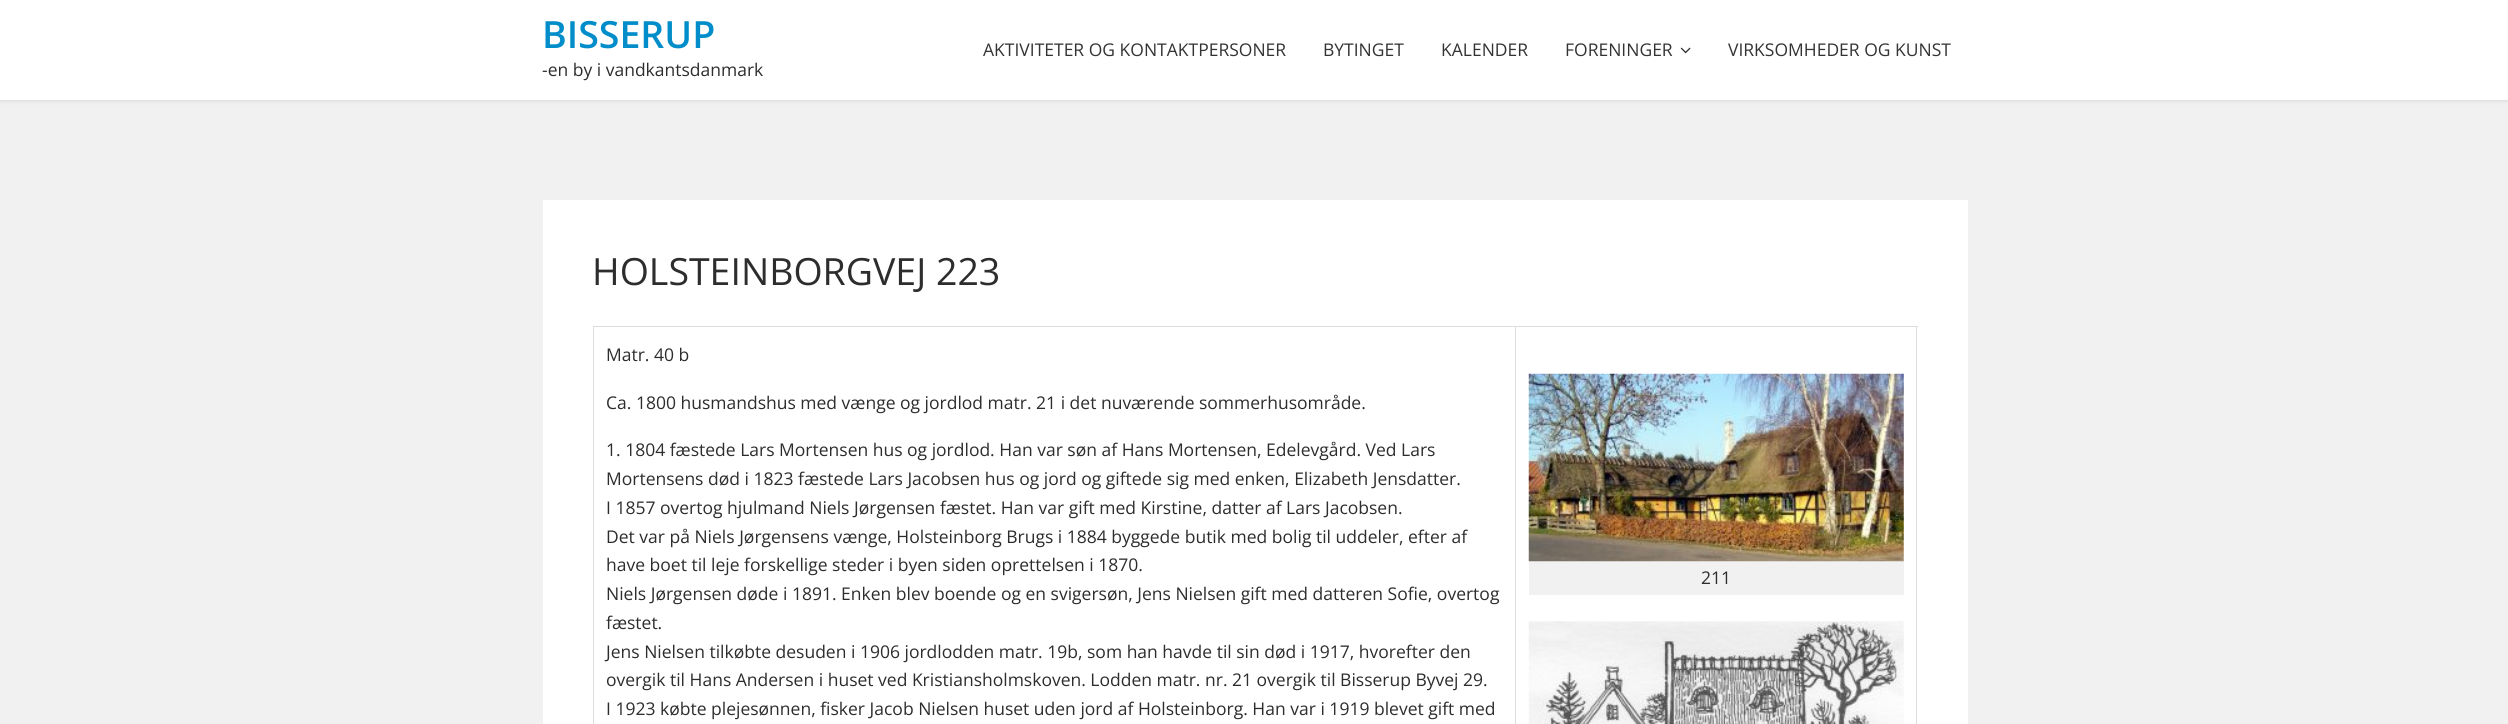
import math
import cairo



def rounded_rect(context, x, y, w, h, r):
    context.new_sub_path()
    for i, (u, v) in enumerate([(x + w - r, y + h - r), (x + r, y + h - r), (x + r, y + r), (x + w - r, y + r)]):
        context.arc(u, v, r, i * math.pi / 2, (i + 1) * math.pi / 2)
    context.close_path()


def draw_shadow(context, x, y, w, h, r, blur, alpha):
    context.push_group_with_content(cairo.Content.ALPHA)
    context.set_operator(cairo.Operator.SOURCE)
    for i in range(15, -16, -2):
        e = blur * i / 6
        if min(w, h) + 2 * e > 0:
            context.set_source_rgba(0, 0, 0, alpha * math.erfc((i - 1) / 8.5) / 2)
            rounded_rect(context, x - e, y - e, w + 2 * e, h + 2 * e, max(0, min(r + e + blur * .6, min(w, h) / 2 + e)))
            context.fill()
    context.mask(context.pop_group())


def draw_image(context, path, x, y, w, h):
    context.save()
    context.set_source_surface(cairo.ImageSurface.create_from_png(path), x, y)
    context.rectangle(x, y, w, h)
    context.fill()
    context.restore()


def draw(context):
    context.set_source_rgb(241 / 255, 241 / 255, 241 / 255)
    context.paint()
    context.set_source_rgb(190 / 255, 190 / 255, 190 / 255)
    draw_shadow(context, 0, 1, 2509, 100, 0, 2, 0.5)
    context.set_source_rgb(1, 1, 1)
    context.rectangle(0, 0, 2508, 100)
    context.fill()
    draw_image(context, "images/1.png", 1680, 47, 11, 7)
    context.rectangle(543, 200, 1425, 524)
    context.fill()
    context.set_source_rgb(221 / 255, 221 / 255, 221 / 255)
    context.rectangle(593, 326, 1325, 1)
    context.fill()
    context.rectangle(1916, 326, 1, 398)
    context.fill()
    context.rectangle(593, 326, 1, 398)
    context.fill()
    context.rectangle(1515, 326, 1, 398)
    context.fill()
    context.set_source_rgb(241 / 255, 241 / 255, 241 / 255)
    context.rectangle(1529, 561, 375, 34)
    context.fill()
    draw_image(context, "images/2.png", 1528, 373, 376, 189)
    draw_image(context, "images/3.png", 1528, 621, 376, 103)
    context.select_font_face("Open Sans SemiBold")
    context.set_font_size(37.5)
    context.set_source_rgb(0, 141 / 255, 201 / 255)
    context.move_to(542, 48)
    context.show_text("BISSERUP")
    context.select_font_face("Open Sans")
    context.set_font_size(17.5)
    context.set_source_rgb(45 / 255, 45 / 255, 45 / 255)
    context.move_to(542, 76)
    context.show_text("-en by i vandkantsdanmark")
    context.set_source_rgb(51 / 255, 51 / 255, 51 / 255)
    context.move_to(983, 56)
    context.show_text("AKTIVITETER OG KONTAKTPERSONER")
    context.move_to(1323, 56)
    context.show_text("BYTINGET")
    context.move_to(1441, 56)
    context.show_text("KALENDER")
    context.move_to(1565, 56)
    context.show_text("FORENINGER")
    context.move_to(1728, 56)
    context.show_text("VIRKSOMHEDER OG KUNST")
    context.set_font_size(37.5)
    context.set_source_rgb(45 / 255, 45 / 255, 45 / 255)
    context.move_to(592, 285)
    context.show_text("HOLSTEINBORGVEJ 223")
    context.set_font_size(17.5)
    context.move_to(606, 361)
    context.show_text("Matr. 40 b")
    context.move_to(606, 409)
    context.show_text("Ca. 1800 husmandshus med vænge og jordlod matr. 21 i det nuværende sommerhusområde.")
    context.move_to(606, 456)
    context.show_text("1. 1804 fæstede Lars Mortensen hus og jordlod. Han var søn af Hans Mortensen, Edelevgård. Ved Lars")
    context.move_to(606, 485)
    context.show_text("Mortensens død i 1823 fæstede Lars Jacobsen hus og jord og giftede sig med enken, Elizabeth Jensdatter.")
    context.move_to(606, 514)
    context.show_text("I 1857 overtog hjulmand Niels Jørgensen fæstet. Han var gift med Kirstine, datter af Lars Jacobsen.")
    context.move_to(606, 543)
    context.show_text("Det var på Niels Jørgensens vænge, Holsteinborg Brugs i 1884 byggede butik med bolig til uddeler, efter af")
    context.move_to(606, 571)
    context.show_text("have boet til leje forskellige steder i byen siden oprettelsen i 1870.")
    context.move_to(606, 600)
    context.show_text("Niels Jørgensen døde i 1891. Enken blev boende og en svigersøn, Jens Nielsen gift med datteren Sofie, overtog")
    context.move_to(606, 629)
    context.show_text("fæstet.")
    context.move_to(606, 658)
    context.show_text("Jens Nielsen tilkøbte desuden i 1906 jordlodden matr. 19b, som han havde til sin død i 1917, hvorefter den")
    context.move_to(606, 686)
    context.show_text("overgik til Hans Andersen i huset ved Kristiansholmskoven. Lodden matr. nr. 21 overgik til Bisserup Byvej 29.")
    context.move_to(606, 715)
    context.show_text("I 1923 købte plejesønnen, fisker Jacob Nielsen huset uden jord af Holsteinborg. Han var i 1919 blevet gift med")
    context.move_to(1701, 584)
    context.show_text("211")


surface = cairo.ImageSurface(cairo.Format.RGB24, 2508, 724)
context = cairo.Context(surface)
options = cairo.FontOptions()
options.set_hint_metrics(cairo.HintMetrics.OFF)
options.set_hint_style(cairo.HintStyle.NONE)
context.set_font_options(options)
context.set_miter_limit(4)
draw(context)
surface.write_to_png("out.png")
